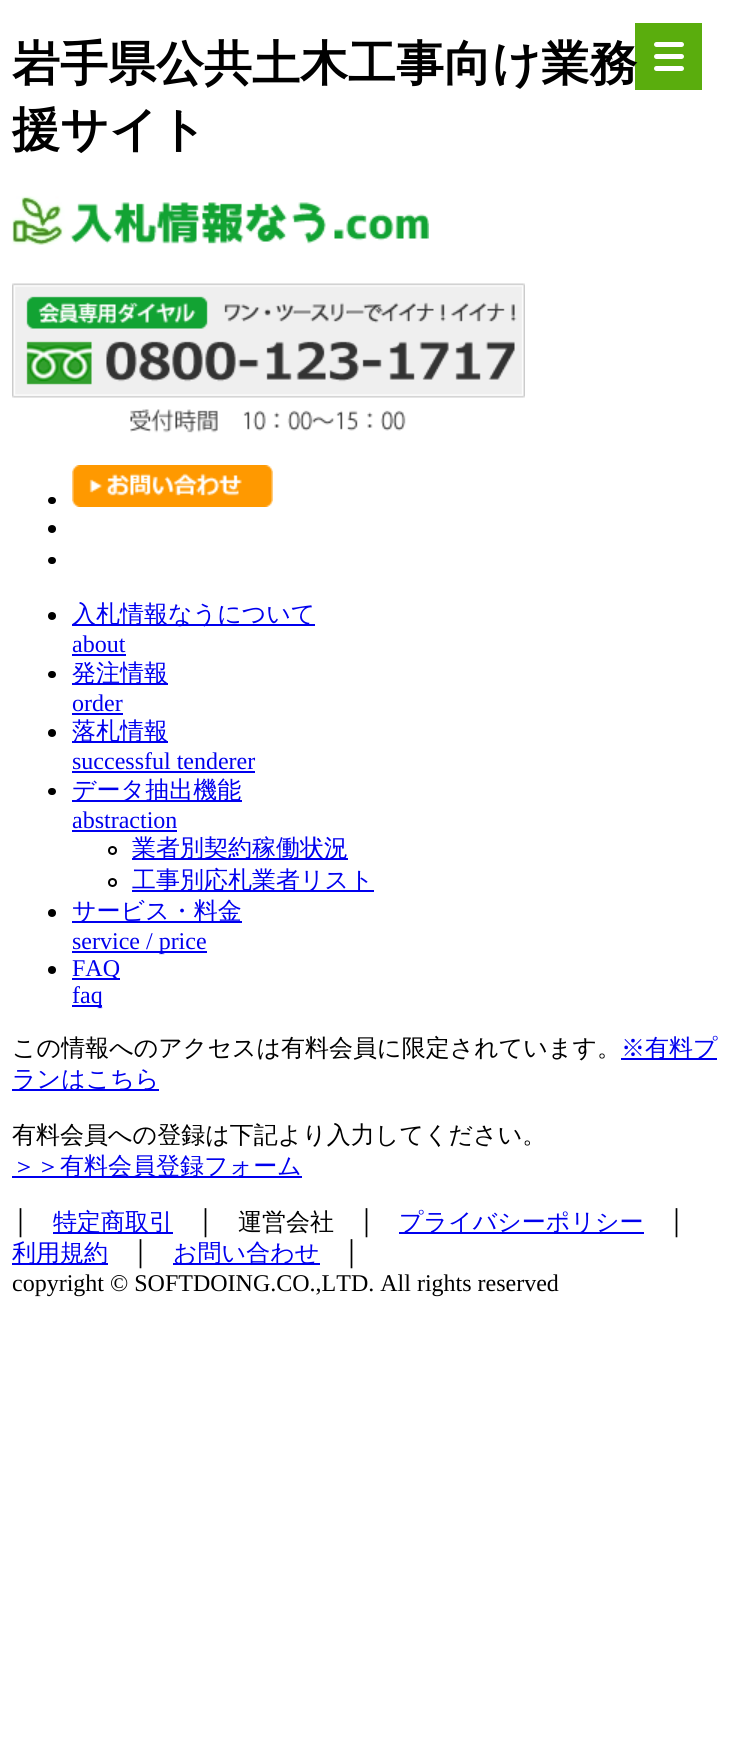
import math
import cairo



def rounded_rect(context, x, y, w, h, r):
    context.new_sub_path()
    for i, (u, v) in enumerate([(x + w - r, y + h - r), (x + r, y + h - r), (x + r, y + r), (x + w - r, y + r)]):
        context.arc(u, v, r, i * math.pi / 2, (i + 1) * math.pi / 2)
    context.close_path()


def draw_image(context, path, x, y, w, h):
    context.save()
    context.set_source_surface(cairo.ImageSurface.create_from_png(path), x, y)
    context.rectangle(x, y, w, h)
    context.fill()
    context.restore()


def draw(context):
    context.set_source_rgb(1, 1, 1)
    context.paint()
    draw_image(context, "images/1.png", 12, 196, 417, 49)
    draw_image(context, "images/2.png", 12, 283, 513, 150)
    context.set_source_rgb(0, 0, 0)
    rounded_rect(context, 48, 497, 8, 7, 3.5)
    context.fill()
    draw_image(context, "images/3.png", 72, 465, 201, 42)
    context.arc(52, 529, 4, 0, 2 * math.pi)
    context.fill()
    rounded_rect(context, 48, 557, 8, 7, 3.5)
    context.fill()
    context.set_source_rgb(90 / 255, 173 / 255, 13 / 255)
    context.rectangle(635, 23, 67, 67)
    context.fill()
    context.set_source_rgb(1, 1, 1)
    rounded_rect(context, 654, 54, 30, 5, 2.5)
    context.fill()
    rounded_rect(context, 654, 42, 30, 5, 2.5)
    context.fill()
    rounded_rect(context, 654, 66, 30, 5, 2.5)
    context.fill()
    context.set_source_rgb(0, 0, 0)
    context.arc(52, 616, 4, 0, 2 * math.pi)
    context.fill()
    context.set_source_rgb(0, 0, 238 / 255)
    context.rectangle(72, 624, 243, 2)
    context.fill()
    context.rectangle(72, 654, 54, 2)
    context.fill()
    context.set_source_rgb(0, 0, 0)
    rounded_rect(context, 48, 671, 8, 7, 3.5)
    context.fill()
    context.set_source_rgb(0, 0, 238 / 255)
    context.rectangle(72, 683, 96, 2)
    context.fill()
    context.rectangle(72, 713, 51, 2)
    context.fill()
    context.set_source_rgb(0, 0, 0)
    context.arc(52, 733, 4, 0, 2 * math.pi)
    context.fill()
    context.set_source_rgb(0, 0, 238 / 255)
    context.rectangle(72, 741, 96, 2)
    context.fill()
    context.rectangle(72, 771, 183, 2)
    context.fill()
    context.set_source_rgb(0, 0, 0)
    rounded_rect(context, 48, 788, 8, 7, 3.5)
    context.fill()
    context.set_source_rgb(0, 0, 238 / 255)
    context.rectangle(72, 800, 170, 2)
    context.fill()
    context.rectangle(72, 830, 105, 2)
    context.fill()
    context.arc(112.5, 850.5, 3.5, 0, 2 * math.pi)
    context.set_source_rgb(0, 0, 0)
    context.stroke()
    context.set_source_rgb(0, 0, 238 / 255)
    context.rectangle(132, 858, 216, 2)
    context.fill()
    context.arc(112.5, 882.5, 3.5, 0, 2 * math.pi)
    context.set_source_rgb(0, 0, 0)
    context.stroke()
    context.set_source_rgb(0, 0, 238 / 255)
    context.rectangle(132, 890, 242, 2)
    context.fill()
    context.set_source_rgb(0, 0, 0)
    context.arc(52, 913, 4, 0, 2 * math.pi)
    context.fill()
    context.set_source_rgb(0, 0, 238 / 255)
    context.rectangle(72, 921, 170, 2)
    context.fill()
    context.rectangle(72, 951, 135, 2)
    context.fill()
    context.set_source_rgb(0, 0, 0)
    context.arc(52, 970, 4, 0, 2 * math.pi)
    context.fill()
    context.set_source_rgb(0, 0, 238 / 255)
    context.rectangle(72, 978, 48, 2)
    context.fill()
    context.rectangle(72, 1005, 30, 2)
    context.fill()
    context.rectangle(621, 1058, 96, 2)
    context.fill()
    context.rectangle(12, 1089, 147, 2)
    context.fill()
    context.rectangle(12, 1176, 290, 2)
    context.fill()
    context.rectangle(53, 1232, 120, 2)
    context.fill()
    context.rectangle(399, 1232, 245, 2)
    context.fill()
    context.rectangle(12, 1263, 96, 2)
    context.fill()
    context.rectangle(173, 1263, 147, 2)
    context.fill()
    context.select_font_face("WenQuanYi Zen Hei", cairo.FontSlant.NORMAL, cairo.FontWeight.BOLD)
    context.set_font_size(48)
    context.set_source_rgb(0, 0, 0)
    context.move_to(12, 80)
    context.show_text("岩手県公共土木工事向け業務")
    context.move_to(12, 146)
    context.show_text("援サイト")
    context.select_font_face("WenQuanYi Zen Hei Medium")
    context.set_font_size(24)
    context.set_source_rgb(0, 0, 238 / 255)
    context.move_to(72, 622)
    context.show_text("入札情報なうについて")
    context.select_font_face("Liberation Serif")
    context.move_to(72, 652)
    context.show_text("about")
    context.select_font_face("WenQuanYi Zen Hei Medium")
    context.move_to(72, 681)
    context.show_text("発注情報")
    context.select_font_face("Liberation Serif")
    context.move_to(72, 711)
    context.show_text("order")
    context.select_font_face("WenQuanYi Zen Hei Medium")
    context.move_to(72, 739)
    context.show_text("落札情報")
    context.select_font_face("Liberation Serif")
    context.move_to(72, 769)
    context.show_text("successful tenderer")
    context.select_font_face("WenQuanYi Zen Hei Medium")
    context.move_to(72, 798)
    context.show_text("データ抽出機能")
    context.select_font_face("Liberation Serif")
    context.move_to(72, 828)
    context.show_text("abstraction")
    context.select_font_face("WenQuanYi Zen Hei Medium")
    context.move_to(132, 856)
    context.show_text("業者別契約稼働状況")
    context.move_to(132, 888)
    context.show_text("工事別応札業者リスト")
    context.move_to(72, 919)
    context.show_text("サービス・料金")
    context.select_font_face("Liberation Serif")
    context.move_to(72, 949)
    context.show_text("service / price")
    context.move_to(72, 976)
    context.show_text("FAQ")
    context.move_to(72, 1003)
    context.show_text("faq")
    context.select_font_face("WenQuanYi Zen Hei Medium")
    context.set_source_rgb(0, 0, 0)
    context.move_to(12, 1056)
    context.show_text("この情報へのアクセスは有料会員に限定されています。")
    context.set_source_rgb(0, 0, 238 / 255)
    context.move_to(621, 1056)
    context.show_text("※有料プ")
    context.move_to(12, 1087)
    context.show_text("ランはこちら")
    context.set_source_rgb(0, 0, 0)
    context.move_to(12, 1143)
    context.show_text("有料会員への登録は下記より入力してください。")
    context.set_source_rgb(0, 0, 238 / 255)
    context.move_to(12, 1174)
    context.show_text("＞＞有料会員登録フォーム")
    context.select_font_face("Liberation Serif")
    context.set_source_rgb(0, 0, 0)
    context.move_to(12, 1230)
    context.show_text("│")
    context.select_font_face("WenQuanYi Zen Hei Medium")
    context.set_source_rgb(0, 0, 238 / 255)
    context.move_to(53, 1230)
    context.show_text("特定商取引")
    context.select_font_face("Liberation Serif")
    context.set_source_rgb(0, 0, 0)
    context.move_to(197, 1230)
    context.show_text("│")
    context.select_font_face("WenQuanYi Zen Hei Medium")
    context.move_to(238, 1230)
    context.show_text("運営会社")
    context.select_font_face("Liberation Serif")
    context.move_to(358, 1230)
    context.show_text("│")
    context.select_font_face("WenQuanYi Zen Hei Medium")
    context.set_source_rgb(0, 0, 238 / 255)
    context.move_to(399, 1230)
    context.show_text("プライバシーポリシー")
    context.select_font_face("Liberation Serif")
    context.set_source_rgb(0, 0, 0)
    context.move_to(668, 1230)
    context.show_text("│")
    context.select_font_face("WenQuanYi Zen Hei Medium")
    context.set_source_rgb(0, 0, 238 / 255)
    context.move_to(12, 1261)
    context.show_text("利用規約")
    context.select_font_face("Liberation Serif")
    context.set_source_rgb(0, 0, 0)
    context.move_to(132, 1261)
    context.show_text("│")
    context.select_font_face("WenQuanYi Zen Hei Medium")
    context.set_source_rgb(0, 0, 238 / 255)
    context.move_to(173, 1261)
    context.show_text("お問い合わせ")
    context.select_font_face("Liberation Serif")
    context.set_source_rgb(0, 0, 0)
    context.move_to(343, 1261)
    context.show_text("│")
    context.move_to(12, 1291)
    context.show_text("copyright © SOFTDOING.CO.,LTD. All rights reserved")


surface = cairo.ImageSurface(cairo.Format.RGB24, 739, 1743)
context = cairo.Context(surface)
options = cairo.FontOptions()
options.set_hint_metrics(cairo.HintMetrics.OFF)
options.set_hint_style(cairo.HintStyle.NONE)
context.set_font_options(options)
context.set_miter_limit(4)
draw(context)
surface.write_to_png("out.png")
